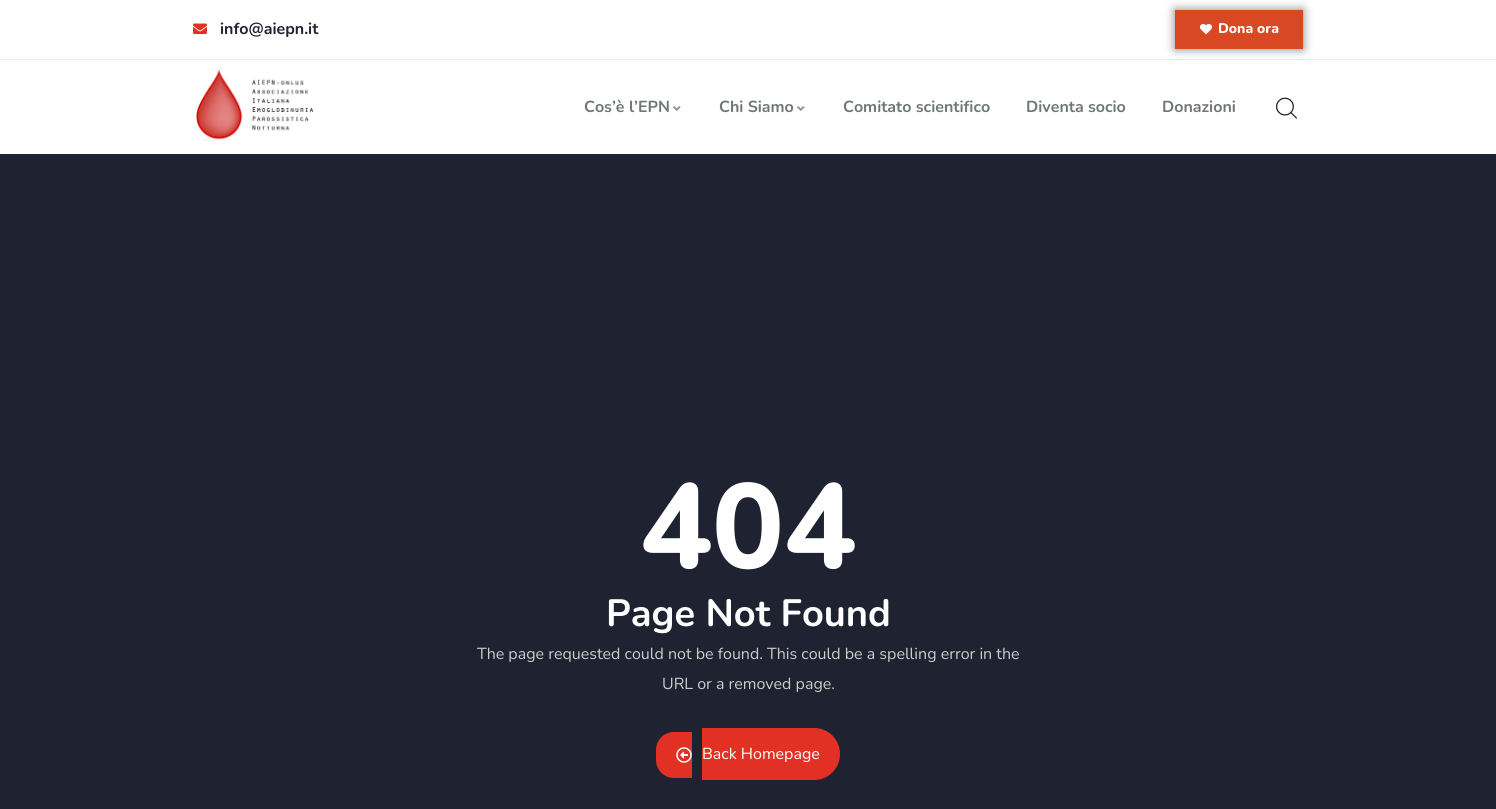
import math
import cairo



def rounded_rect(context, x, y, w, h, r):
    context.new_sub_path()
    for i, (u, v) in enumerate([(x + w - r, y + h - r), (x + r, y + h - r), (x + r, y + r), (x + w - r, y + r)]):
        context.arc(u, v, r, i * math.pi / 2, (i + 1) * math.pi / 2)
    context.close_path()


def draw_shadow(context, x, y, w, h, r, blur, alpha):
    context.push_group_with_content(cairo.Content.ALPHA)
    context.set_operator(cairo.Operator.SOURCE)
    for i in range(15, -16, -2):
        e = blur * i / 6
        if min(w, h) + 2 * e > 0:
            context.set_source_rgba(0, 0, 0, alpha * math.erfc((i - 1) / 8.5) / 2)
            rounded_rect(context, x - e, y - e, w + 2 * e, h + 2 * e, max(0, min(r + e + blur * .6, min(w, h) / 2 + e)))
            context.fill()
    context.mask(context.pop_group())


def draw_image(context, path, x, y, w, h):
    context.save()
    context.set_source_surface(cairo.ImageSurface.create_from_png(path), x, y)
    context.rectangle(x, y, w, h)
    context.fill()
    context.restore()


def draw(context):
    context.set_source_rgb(1, 1, 1)
    context.paint()
    context.set_source_rgb(229 / 255, 238 / 255, 236 / 255)
    context.rectangle(0, 59, 1496, 1)
    context.fill()
    draw_image(context, "images/1.png", 193, 23, 14, 11)
    context.set_source_rgb(0, 0, 0)
    draw_shadow(context, 1175, 10, 128, 39, 0, 5, 0.5)
    context.set_source_rgb(215 / 255, 72 / 255, 35 / 255)
    context.rectangle(1175, 10, 128, 39)
    context.fill()
    draw_image(context, "images/2.png", 1199, 23, 14, 12)
    draw_image(context, "images/3.png", 196, 68, 118, 74)
    draw_image(context, "images/4.png", 673, 106, 8, 5)
    draw_image(context, "images/4.png", 797, 106, 8, 5)
    draw_image(context, "images/5.png", 1276, 97, 21, 22)
    context.set_source_rgb(31 / 255, 34 / 255, 48 / 255)
    context.rectangle(0, 154, 1496, 655)
    context.fill()
    context.set_source_rgb(226 / 255, 49 / 255, 36 / 255)
    context.new_path()
    context.move_to(674, 732)
    context.line_to(692, 732)
    context.line_to(692, 778)
    context.line_to(674, 778)
    context.curve_to(664, 778, 656, 770, 656, 760)
    context.line_to(656, 750)
    context.curve_to(656, 740, 664, 732, 674, 732)
    context.close_path()
    context.fill()
    context.new_path()
    context.move_to(702, 728)
    context.line_to(814, 728)
    context.curve_to(828.5, 728, 840, 739.5, 840, 754)
    context.curve_to(840, 768.5, 828.5, 780, 814, 780)
    context.line_to(702, 780)
    context.close_path()
    context.fill()
    draw_image(context, "images/6.png", 676, 747, 16, 16)
    context.select_font_face("Nunito", cairo.FontSlant.NORMAL, cairo.FontWeight.BOLD)
    context.set_font_size(16)
    context.set_source_rgb(31 / 255, 34 / 255, 48 / 255)
    context.move_to(220, 34)
    context.show_text("info@aiepn.it")
    context.select_font_face("Nunito ExtraBold")
    context.set_font_size(14)
    context.set_source_rgb(1, 1, 1)
    context.move_to(1218, 33)
    context.show_text("Dona ora")
    context.select_font_face("Nunito", cairo.FontSlant.NORMAL, cairo.FontWeight.BOLD)
    context.set_font_size(16)
    context.set_source_rgb(112 / 255, 120 / 255, 118 / 255)
    context.move_to(584, 112)
    context.show_text("Cos’è l’EPN")
    context.move_to(719, 112)
    context.show_text("Chi Siamo")
    context.move_to(843, 112)
    context.show_text("Comitato scientifico")
    context.move_to(1026, 112)
    context.show_text("Diventa socio")
    context.move_to(1162, 112)
    context.show_text("Donazioni")
    context.select_font_face("Nunito ExtraBold")
    context.set_font_size(120)
    context.set_source_rgb(1, 1, 1)
    context.move_to(640, 568)
    context.show_text("404")
    context.select_font_face("Nunito", cairo.FontSlant.NORMAL, cairo.FontWeight.BOLD)
    context.set_font_size(38)
    context.move_to(606, 626)
    context.show_text("Page Not Found")
    context.select_font_face("Nunito")
    context.set_font_size(16)
    context.set_source_rgb(204 / 255, 204 / 255, 204 / 255)
    context.move_to(477, 659)
    context.show_text("The page requested could not be found. This could be a spelling error in the")
    context.move_to(662, 689)
    context.show_text("URL or a removed page.")
    context.set_source_rgb(1, 1, 1)
    context.move_to(702, 759)
    context.show_text("Back Homepage")


surface = cairo.ImageSurface(cairo.Format.RGB24, 1496, 809)
context = cairo.Context(surface)
options = cairo.FontOptions()
options.set_hint_metrics(cairo.HintMetrics.OFF)
options.set_hint_style(cairo.HintStyle.NONE)
context.set_font_options(options)
context.set_miter_limit(4)
draw(context)
surface.write_to_png("out.png")
